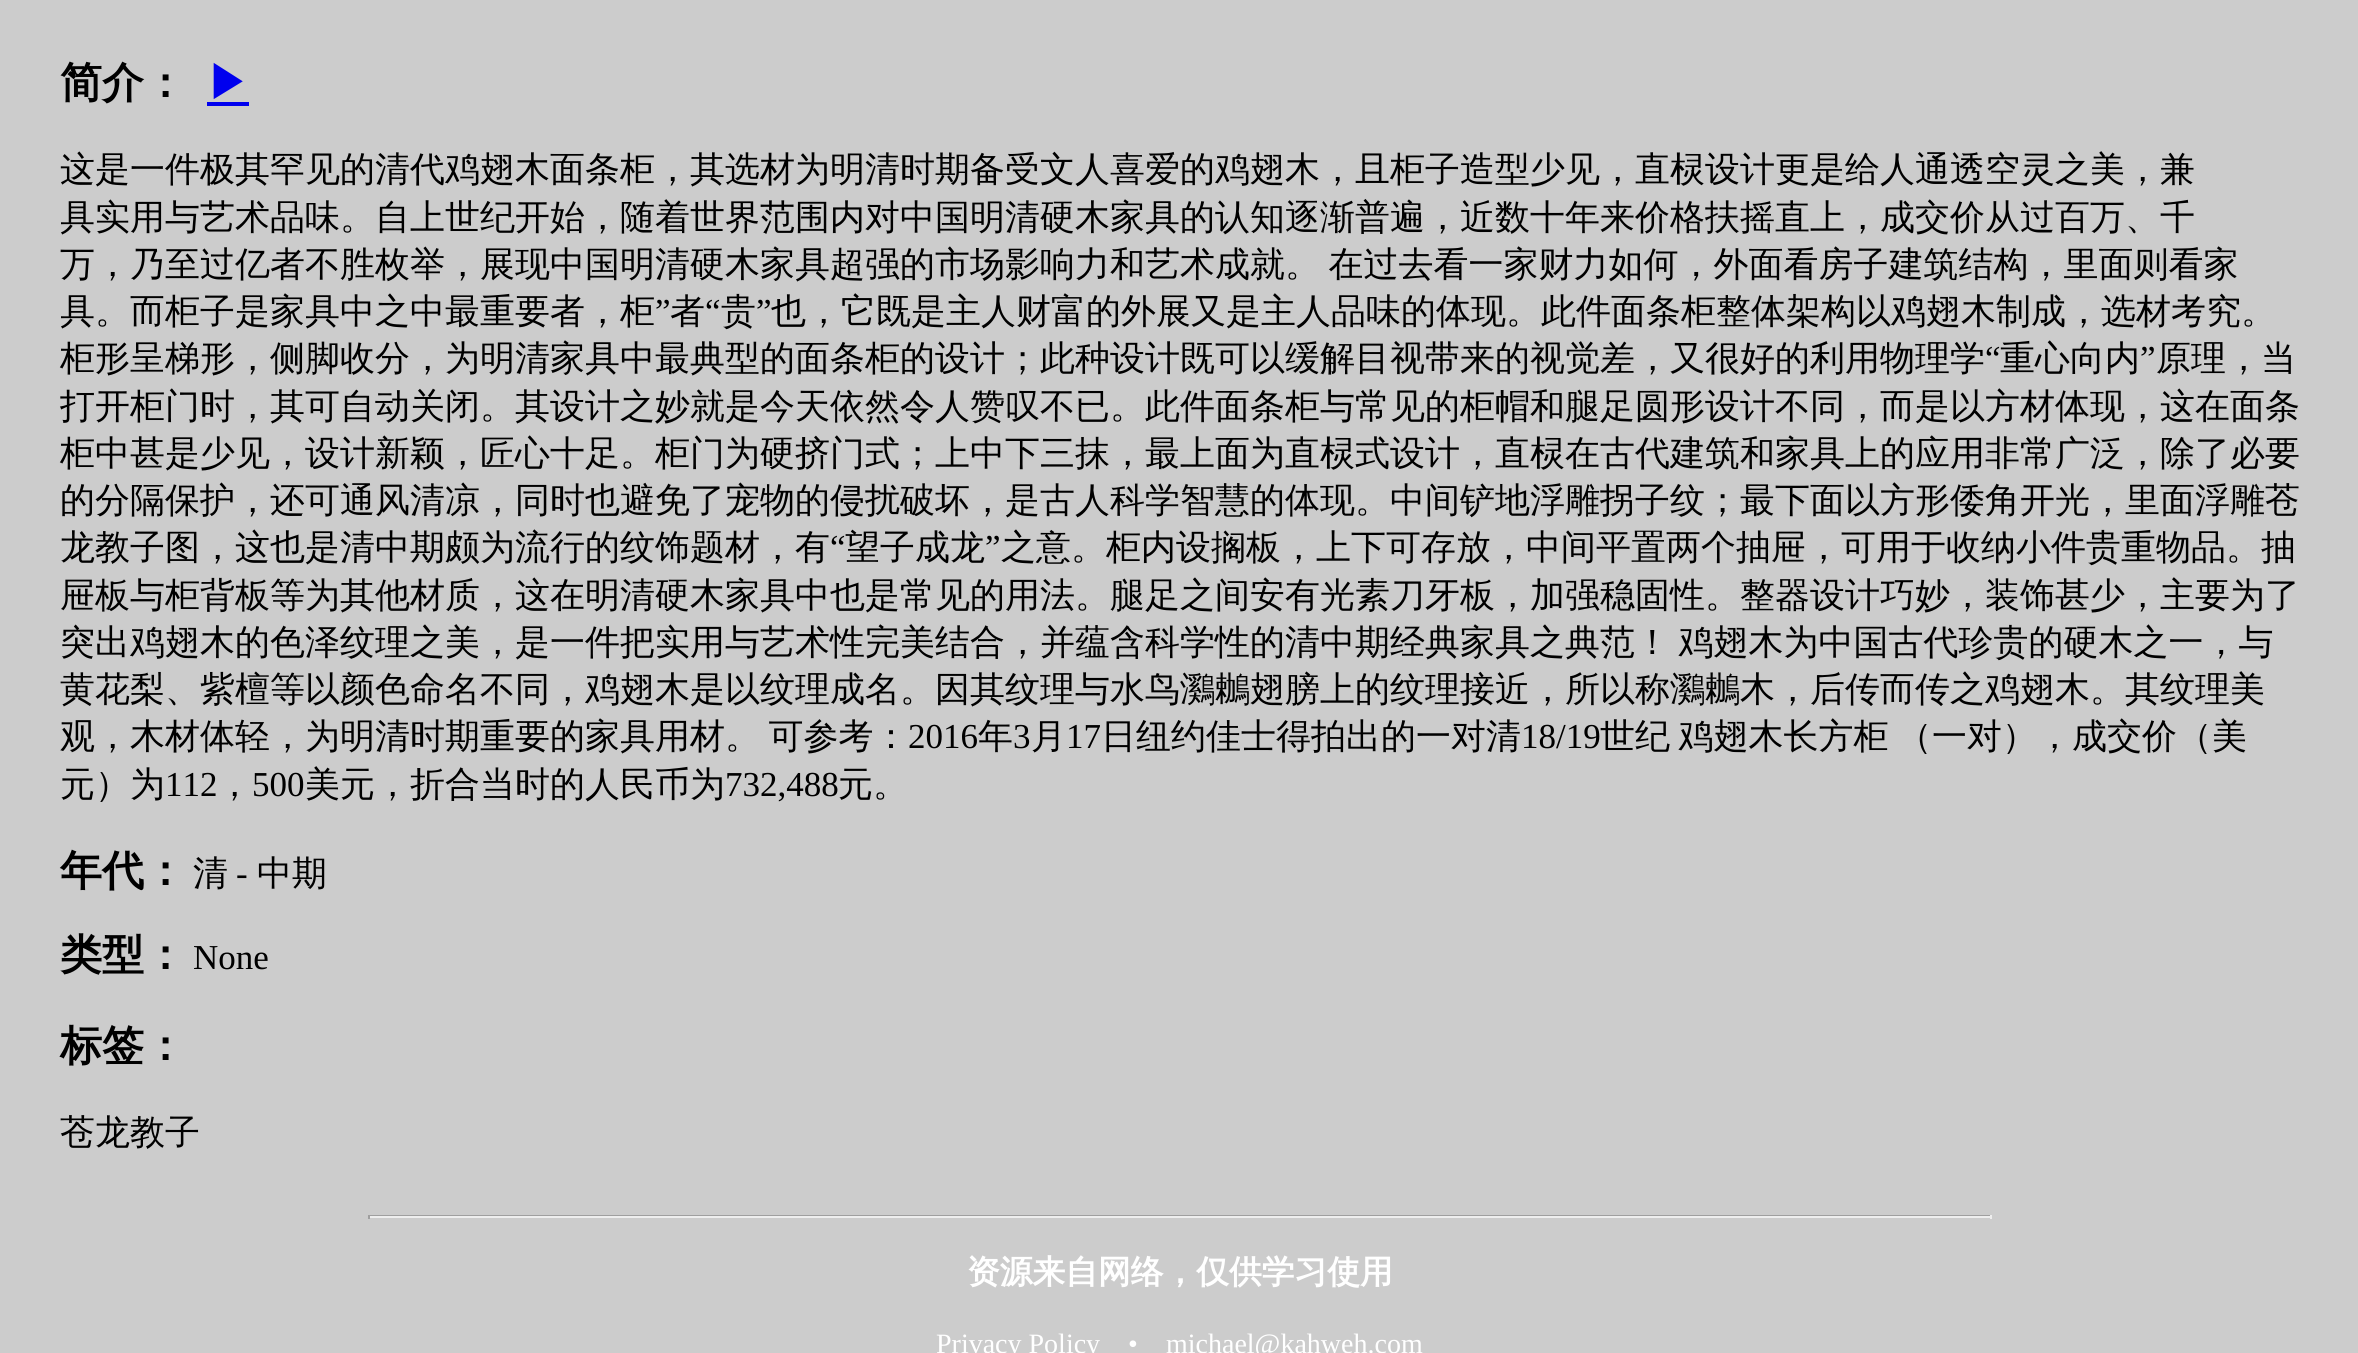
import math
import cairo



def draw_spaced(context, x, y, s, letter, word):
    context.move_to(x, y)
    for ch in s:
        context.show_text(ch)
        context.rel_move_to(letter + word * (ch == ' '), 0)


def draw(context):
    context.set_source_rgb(204 / 255, 204 / 255, 204 / 255)
    context.paint()
    context.set_source_rgb(0, 0, 238 / 255)
    context.rectangle(207, 102, 42, 4)
    context.fill()
    context.set_source_rgb(159 / 255, 159 / 255, 159 / 255)
    context.rectangle(368, 1215, 1624, 1)
    context.fill()
    context.set_source_rgb(238 / 255, 238 / 255, 238 / 255)
    context.rectangle(1990, 1215, 2, 4)
    context.fill()
    context.rectangle(368, 1216, 1624, 2)
    context.fill()
    context.set_source_rgb(159 / 255, 159 / 255, 159 / 255)
    context.rectangle(368, 1215, 2, 4)
    context.fill()
    context.select_font_face("WenQuanYi Zen Hei", cairo.FontSlant.NORMAL, cairo.FontWeight.BOLD)
    context.set_font_size(42)
    context.set_source_rgb(0, 0, 0)
    context.move_to(60, 97)
    context.show_text("简介：")
    context.set_source_rgb(0, 0, 238 / 255)
    context.move_to(207, 97)
    context.show_text("▶")
    context.select_font_face("WenQuanYi Zen Hei Medium")
    context.set_font_size(35)
    context.set_source_rgb(0, 0, 0)
    context.move_to(60, 181)
    context.show_text("这是一件极其罕见的清代鸡翅木面条柜，其选材为明清时期备受文人喜爱的鸡翅木，且柜子造型少见，直棂设计更是给人通透空灵之美，兼")
    context.move_to(60, 229)
    context.show_text("具实用与艺术品味。自上世纪开始，随着世界范围内对中国明清硬木家具的认知逐渐普遍，近数十年来价格扶摇直上，成交价从过百万、千")
    draw_spaced(context, 60, 276, "万，乃至过亿者不胜枚举，展现中国明清硬木家具超强的市场影响力和艺术成就。 在过去看一家财力如何，外面看房子建筑结构，里面则看家", 0, -2)
    context.move_to(60, 323)
    context.show_text("具。而柜子是家具中之中最重要者，柜")
    context.select_font_face("Liberation Serif")
    context.move_to(655, 323)
    context.show_text("”")
    context.select_font_face("WenQuanYi Zen Hei Medium")
    context.move_to(670, 323)
    context.show_text("者")
    context.select_font_face("Liberation Serif")
    context.move_to(705, 323)
    context.show_text("“")
    context.select_font_face("WenQuanYi Zen Hei Medium")
    context.move_to(721, 323)
    context.show_text("贵")
    context.select_font_face("Liberation Serif")
    context.move_to(756, 323)
    context.show_text("”")
    context.select_font_face("WenQuanYi Zen Hei Medium")
    context.move_to(771, 323)
    context.show_text("也，它既是主人财富的外展又是主人品味的体现。此件面条柜整体架构以鸡翅木制成，选材考究。")
    context.move_to(60, 370)
    context.show_text("柜形呈梯形，侧脚收分，为明清家具中最典型的面条柜的设计；此种设计既可以缓解目视带来的视觉差，又很好的利用物理学")
    context.select_font_face("Liberation Serif")
    context.move_to(1985, 370)
    context.show_text("“")
    context.select_font_face("WenQuanYi Zen Hei Medium")
    context.move_to(2000, 370)
    context.show_text("重心向内")
    context.select_font_face("Liberation Serif")
    context.move_to(2140, 370)
    context.show_text("”")
    context.select_font_face("WenQuanYi Zen Hei Medium")
    context.move_to(2156, 370)
    context.show_text("原理，当")
    context.move_to(60, 418)
    context.show_text("打开柜门时，其可自动关闭。其设计之妙就是今天依然令人赞叹不已。此件面条柜与常见的柜帽和腿足圆形设计不同，而是以方材体现，这在面条")
    context.move_to(60, 465)
    context.show_text("柜中甚是少见，设计新颖，匠心十足。柜门为硬挤门式；上中下三抹，最上面为直棂式设计，直棂在古代建筑和家具上的应用非常广泛，除了必要")
    context.move_to(60, 512)
    context.show_text("的分隔保护，还可通风清凉，同时也避免了宠物的侵扰破坏，是古人科学智慧的体现。中间铲地浮雕拐子纹；最下面以方形倭角开光，里面浮雕苍")
    context.move_to(60, 559)
    context.show_text("龙教子图，这也是清中期颇为流行的纹饰题材，有")
    context.select_font_face("Liberation Serif")
    context.move_to(830, 559)
    context.show_text("“")
    context.select_font_face("WenQuanYi Zen Hei Medium")
    context.move_to(845, 559)
    context.show_text("望子成龙")
    context.select_font_face("Liberation Serif")
    context.move_to(985, 559)
    context.show_text("”")
    context.select_font_face("WenQuanYi Zen Hei Medium")
    context.move_to(1001, 559)
    context.show_text("之意。柜内设搁板，上下可存放，中间平置两个抽屉，可用于收纳小件贵重物品。抽")
    context.move_to(60, 607)
    context.show_text("屉板与柜背板等为其他材质，这在明清硬木家具中也是常见的用法。腿足之间安有光素刀牙板，加强稳固性。整器设计巧妙，装饰甚少，主要为了")
    draw_spaced(context, 60, 654, "突出鸡翅木的色泽纹理之美，是一件把实用与艺术性完美结合，并蕴含科学性的清中期经典家具之典范！ 鸡翅木为中国古代珍贵的硬木之一，与", 0, -2)
    context.move_to(60, 701)
    context.show_text("黄花梨、紫檀等以颜色命名不同，鸡翅木是以纹理成名。因其纹理与水鸟鸂鶒翅膀上的纹理接近，所以称鸂鶒木，后传而传之鸡翅木。其纹理美")
    draw_spaced(context, 60, 748, "观，木材体轻，为明清时期重要的家具用材。 可参考：", 0, -2)
    context.select_font_face("Liberation Serif")
    context.move_to(908, 748)
    context.show_text("2016")
    context.select_font_face("WenQuanYi Zen Hei Medium")
    context.move_to(978, 748)
    context.show_text("年")
    context.select_font_face("Liberation Serif")
    context.move_to(1013, 748)
    context.show_text("3")
    context.select_font_face("WenQuanYi Zen Hei Medium")
    context.move_to(1031, 748)
    context.show_text("月")
    context.select_font_face("Liberation Serif")
    context.move_to(1066, 748)
    context.show_text("17")
    context.select_font_face("WenQuanYi Zen Hei Medium")
    context.move_to(1101, 748)
    context.show_text("日纽约佳士得拍出的一对清")
    context.select_font_face("Liberation Serif")
    context.move_to(1521, 748)
    context.show_text("18/19")
    context.select_font_face("WenQuanYi Zen Hei Medium")
    draw_spaced(context, 1600, 748, "世纪 鸡翅木长方柜 （一对），成交价（美", 0, -2)
    context.move_to(60, 796)
    context.show_text("元）为")
    context.select_font_face("Liberation Serif")
    context.move_to(165, 796)
    context.show_text("112")
    context.select_font_face("WenQuanYi Zen Hei Medium")
    context.move_to(217, 796)
    context.show_text("，")
    context.select_font_face("Liberation Serif")
    context.move_to(252, 796)
    context.show_text("500")
    context.select_font_face("WenQuanYi Zen Hei Medium")
    context.move_to(305, 796)
    context.show_text("美元，折合当时的人民币为")
    context.select_font_face("Liberation Serif")
    context.move_to(725, 796)
    context.show_text("732,488")
    context.select_font_face("WenQuanYi Zen Hei Medium")
    context.move_to(838, 796)
    context.show_text("元。")
    context.select_font_face("WenQuanYi Zen Hei", cairo.FontSlant.NORMAL, cairo.FontWeight.BOLD)
    context.set_font_size(42)
    context.move_to(60, 885)
    context.show_text("年代：")
    context.select_font_face("WenQuanYi Zen Hei Medium")
    context.set_font_size(35)
    context.move_to(193, 885)
    context.show_text("清")
    context.select_font_face("Liberation Serif")
    context.move_to(236, 885)
    context.show_text("-")
    context.select_font_face("WenQuanYi Zen Hei Medium")
    context.move_to(257, 885)
    context.show_text("中期")
    context.select_font_face("WenQuanYi Zen Hei", cairo.FontSlant.NORMAL, cairo.FontWeight.BOLD)
    context.set_font_size(42)
    context.move_to(60, 969)
    context.show_text("类型：")
    context.select_font_face("Liberation Serif")
    context.set_font_size(35)
    context.move_to(193, 969)
    context.show_text("None")
    context.select_font_face("WenQuanYi Zen Hei", cairo.FontSlant.NORMAL, cairo.FontWeight.BOLD)
    context.set_font_size(42)
    context.move_to(60, 1060)
    context.show_text("标签：")
    context.select_font_face("WenQuanYi Zen Hei Medium")
    context.set_font_size(35)
    context.move_to(60, 1144)
    context.show_text("苍龙教子")
    context.select_font_face("WenQuanYi Zen Hei", cairo.FontSlant.NORMAL, cairo.FontWeight.BOLD)
    context.set_font_size(32.75)
    context.set_source_rgb(1, 1, 1)
    context.move_to(967, 1283)
    context.show_text("资源来自网络，仅供学习使用")
    context.select_font_face("Liberation Serif")
    context.set_font_size(28)
    context.move_to(936, 1353)
    context.show_text("Privacy Policy")
    context.move_to(1128, 1353)
    context.show_text("•")
    context.move_to(1166, 1353)
    context.show_text("michael@kahweh.com")


surface = cairo.ImageSurface(cairo.Format.RGB24, 2358, 1353)
context = cairo.Context(surface)
options = cairo.FontOptions()
options.set_hint_metrics(cairo.HintMetrics.OFF)
options.set_hint_style(cairo.HintStyle.NONE)
context.set_font_options(options)
context.set_miter_limit(4)
draw(context)
surface.write_to_png("out.png")
